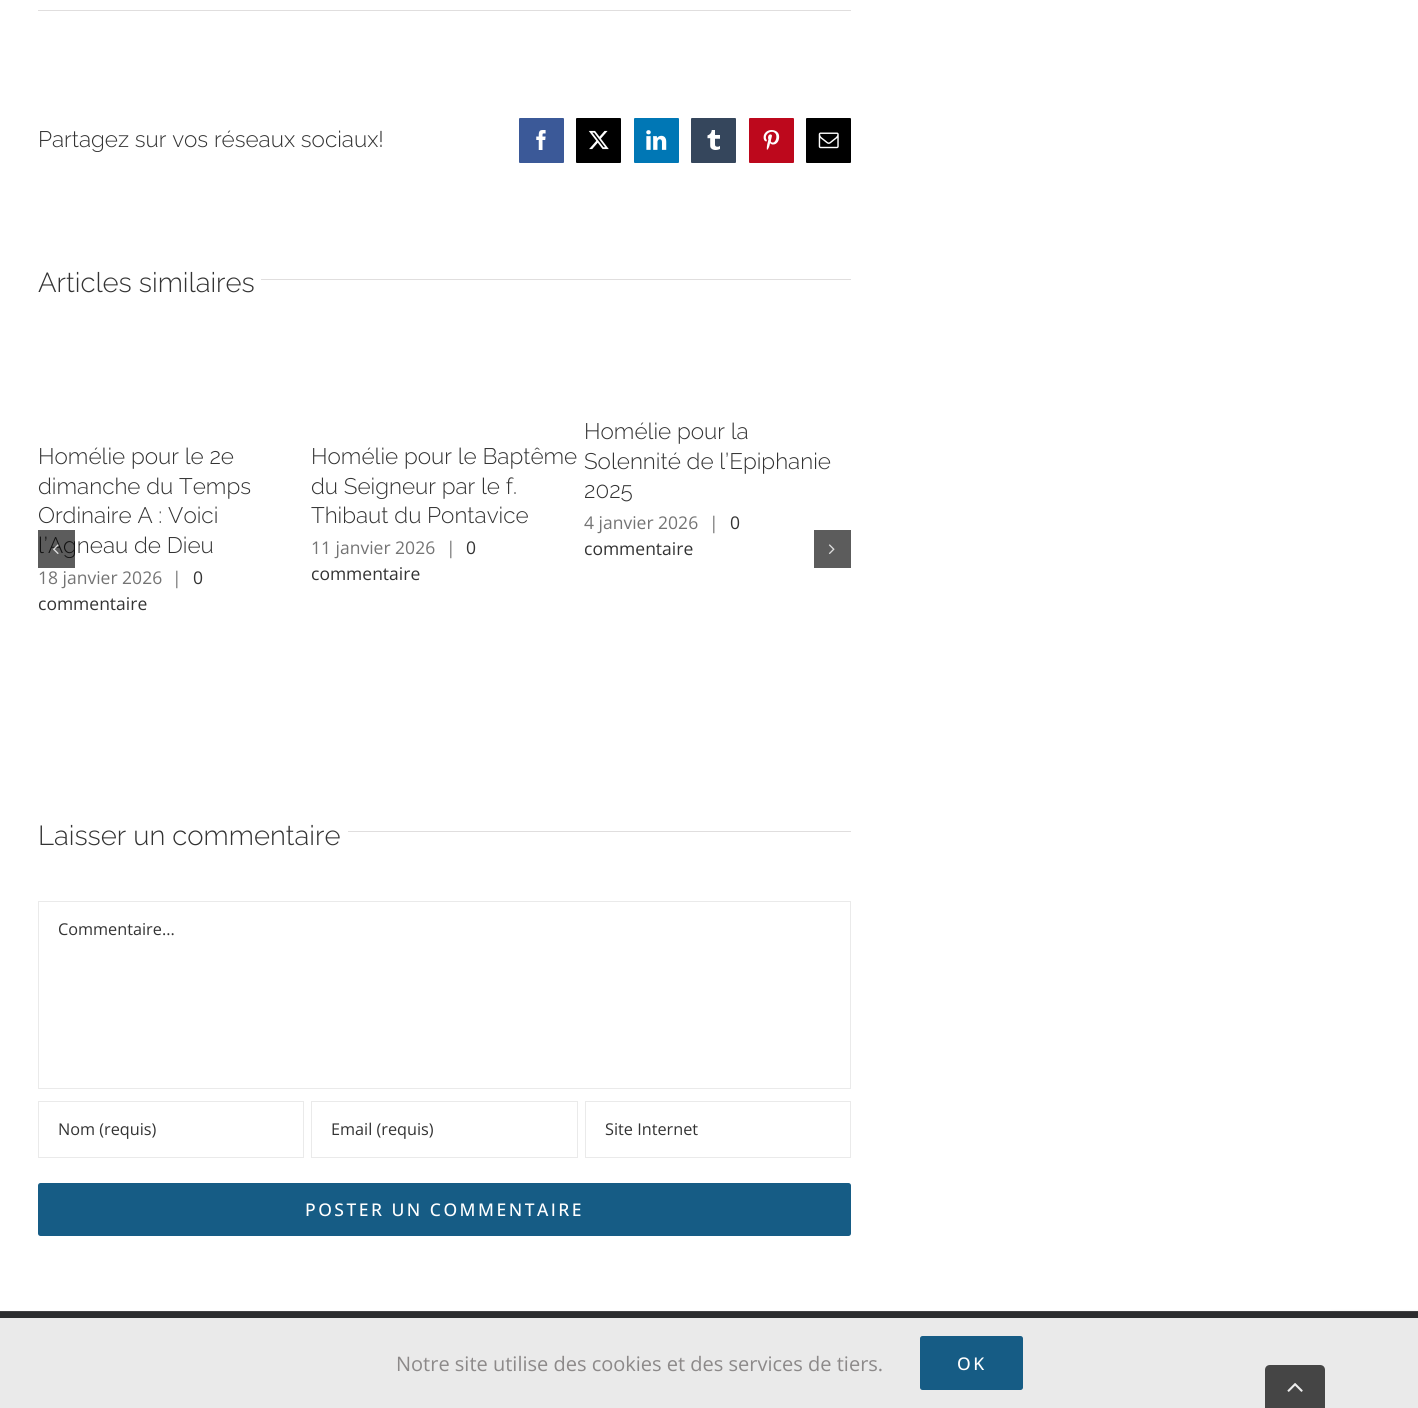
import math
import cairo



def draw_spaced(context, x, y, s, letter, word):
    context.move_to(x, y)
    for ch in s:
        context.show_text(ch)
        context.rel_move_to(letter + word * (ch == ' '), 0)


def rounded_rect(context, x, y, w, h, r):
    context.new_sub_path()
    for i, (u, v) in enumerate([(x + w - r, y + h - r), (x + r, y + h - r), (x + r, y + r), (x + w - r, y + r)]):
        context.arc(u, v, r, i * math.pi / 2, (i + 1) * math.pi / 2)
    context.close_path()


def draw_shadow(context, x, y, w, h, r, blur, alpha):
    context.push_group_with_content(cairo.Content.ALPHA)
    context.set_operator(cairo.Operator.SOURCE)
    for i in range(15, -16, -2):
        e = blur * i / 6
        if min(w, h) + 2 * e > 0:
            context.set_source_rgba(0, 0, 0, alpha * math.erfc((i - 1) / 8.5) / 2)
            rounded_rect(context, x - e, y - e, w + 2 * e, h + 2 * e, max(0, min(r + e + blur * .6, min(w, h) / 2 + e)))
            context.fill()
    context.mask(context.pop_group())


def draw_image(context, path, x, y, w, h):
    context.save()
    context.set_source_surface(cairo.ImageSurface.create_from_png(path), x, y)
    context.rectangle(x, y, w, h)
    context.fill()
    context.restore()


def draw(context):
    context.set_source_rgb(1, 1, 1)
    context.paint()
    context.set_source_rgb(224 / 255, 222 / 255, 222 / 255)
    context.rectangle(38, 10, 813, 1)
    context.fill()
    context.set_source_rgb(59 / 255, 89 / 255, 152 / 255)
    rounded_rect(context, 519.5, 118.5, 44, 44, 0.5)
    context.fill_preserve()
    context.set_line_width(1)
    context.stroke()
    draw_image(context, "images/1.png", 536, 130, 10, 20)
    context.set_source_rgb(0, 0, 0)
    rounded_rect(context, 576.5, 118.5, 44, 44, 0.5)
    context.fill_preserve()
    context.stroke()
    draw_image(context, "images/2.png", 588, 130, 21, 20)
    context.set_source_rgb(0, 119 / 255, 181 / 255)
    rounded_rect(context, 634.5, 118.5, 44, 44, 0.5)
    context.fill_preserve()
    context.stroke()
    draw_image(context, "images/3.png", 646, 130, 21, 20)
    context.set_source_rgb(53 / 255, 70 / 255, 92 / 255)
    rounded_rect(context, 691.5, 118.5, 44, 44, 0.5)
    context.fill_preserve()
    context.stroke()
    draw_image(context, "images/4.png", 707, 130, 13, 20)
    context.set_source_rgb(189 / 255, 8 / 255, 28 / 255)
    rounded_rect(context, 749.5, 118.5, 44, 44, 0.5)
    context.fill_preserve()
    context.stroke()
    draw_image(context, "images/5.png", 763, 130, 17, 20)
    context.set_source_rgb(0, 0, 0)
    rounded_rect(context, 806.5, 118.5, 44, 44, 0.5)
    context.fill_preserve()
    context.stroke()
    draw_image(context, "images/6.png", 818, 132, 21, 17)
    context.set_source_rgb(224 / 255, 222 / 255, 222 / 255)
    context.rectangle(261, 279, 590, 1)
    context.fill()
    context.set_source_rgb(92 / 255, 92 / 255, 92 / 255)
    context.rectangle(814, 530, 37, 38)
    context.fill()
    draw_image(context, "images/8.png", 828, 544, 7, 10)
    context.set_source_rgb(224 / 255, 222 / 255, 222 / 255)
    context.rectangle(348, 831, 503, 1)
    context.fill()
    context.rectangle(38.5, 901.5, 812, 187)
    context.set_source_rgb(234 / 255, 234 / 255, 234 / 255)
    context.stroke()
    context.rectangle(38.5, 1101.5, 265, 56)
    context.stroke()
    context.rectangle(311.5, 1101.5, 266, 56)
    context.stroke()
    context.rectangle(585.5, 1101.5, 265, 56)
    context.stroke()
    context.set_source_rgb(22 / 255, 92 / 255, 133 / 255)
    rounded_rect(context, 38, 1183, 813, 53, 2.5)
    context.fill()
    context.set_source_rgb(128 / 255, 128 / 255, 128 / 255)
    draw_shadow(context, 1331, 1316, 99, 75, 2.5, 3, 1)
    context.set_source_rgb(44 / 255, 45 / 255, 47 / 255)
    context.rectangle(0, 1312, 1418, 6)
    context.fill()
    context.set_source_rgb(64 / 255, 64 / 255, 66 / 255)
    context.rectangle(0, 1311, 1418, 1)
    context.fill()
    context.set_source_rgb(234 / 255, 234 / 255, 234 / 255)
    context.rectangle(0, 1318, 1418, 90)
    context.fill()
    context.set_source_rgb(22 / 255, 92 / 255, 133 / 255)
    rounded_rect(context, 920, 1336, 103, 54, 2.5)
    context.fill()
    context.set_source_rgb(69 / 255, 69 / 255, 69 / 255)
    context.new_path()
    context.move_to(1270, 1365)
    context.line_to(1320, 1365)
    context.curve_to(1323, 1365, 1325, 1367, 1325, 1370)
    context.line_to(1325, 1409)
    context.line_to(1265, 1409)
    context.line_to(1265, 1370)
    context.curve_to(1265, 1367, 1267, 1365, 1270, 1365)
    context.close_path()
    context.fill()
    draw_image(context, "images/9.png", 1287, 1383, 16, 9)
    context.select_font_face("Raleway Light")
    context.set_font_size(22.5)
    context.set_source_rgb(51 / 255, 51 / 255, 51 / 255)
    context.move_to(38, 147)
    context.show_text("Partagez sur vos réseaux sociaux!")
    context.set_font_size(27.5)
    context.move_to(38, 292)
    context.show_text("Articles similaires")
    context.set_font_size(22.5)
    context.move_to(38, 464)
    context.show_text("Homélie pour le 2e")
    context.move_to(38, 494)
    context.show_text("dimanche du Temps")
    context.move_to(38, 523)
    context.show_text("Ordinaire A : Voici")
    context.move_to(38, 553)
    context.show_text("l’Agneau de Dieu")
    context.select_font_face("Open Sans")
    context.set_font_size(17.5)
    context.set_source_rgb(116 / 255, 116 / 255, 116 / 255)
    context.move_to(38, 584)
    context.show_text("18 janvier 2026")
    context.move_to(172, 584)
    context.show_text("|")
    context.set_source_rgb(51 / 255, 51 / 255, 51 / 255)
    context.move_to(193, 584)
    context.show_text("0")
    context.move_to(38, 610)
    context.show_text("commentaire")
    context.select_font_face("Raleway Light")
    context.set_font_size(22.5)
    context.move_to(311, 464)
    context.show_text("Homélie pour le Baptême")
    context.move_to(311, 494)
    context.show_text("du Seigneur par le f.")
    context.move_to(311, 523)
    context.show_text("Thibaut du Pontavice")
    context.select_font_face("Open Sans")
    context.set_font_size(17.5)
    context.set_source_rgb(116 / 255, 116 / 255, 116 / 255)
    context.move_to(311, 554)
    context.show_text("11 janvier 2026")
    context.move_to(446, 554)
    context.show_text("|")
    context.set_source_rgb(51 / 255, 51 / 255, 51 / 255)
    context.move_to(466, 554)
    context.show_text("0")
    context.move_to(311, 580)
    context.show_text("commentaire")
    context.select_font_face("Raleway Light")
    context.set_font_size(22.5)
    context.move_to(584, 439)
    context.show_text("Homélie pour la")
    context.move_to(584, 469)
    context.show_text("Solennité de l’Epiphanie")
    context.move_to(584, 498)
    context.show_text("2025")
    context.select_font_face("Open Sans")
    context.set_font_size(17.5)
    context.set_source_rgb(116 / 255, 116 / 255, 116 / 255)
    context.move_to(584, 529)
    context.show_text("4 janvier 2026")
    context.move_to(709, 529)
    context.show_text("|")
    context.set_source_rgb(51 / 255, 51 / 255, 51 / 255)
    context.move_to(730, 529)
    context.show_text("0")
    context.move_to(584, 555)
    context.show_text("commentaire")
    context.set_source_rgba(0, 0, 0, 0.64)
    context.rectangle(38, 530, 37, 38)
    context.fill()
    draw_image(context, "images/7.png", 53, 544, 6, 10)
    context.select_font_face("Raleway Light")
    context.set_font_size(27.5)
    context.set_source_rgb(51 / 255, 51 / 255, 51 / 255)
    context.move_to(38, 845)
    context.show_text("Laisser un commentaire")
    context.select_font_face("Open Sans")
    context.set_font_size(16.25)
    context.move_to(58, 935)
    context.show_text("Commentaire...")
    context.move_to(58, 1135)
    context.show_text("Nom (requis)")
    context.move_to(331, 1135)
    context.show_text("Email (requis)")
    context.move_to(605, 1135)
    context.show_text("Site Internet")
    context.select_font_face("Open Sans Medium")
    context.set_font_size(17.5)
    context.set_source_rgb(1, 1, 1)
    draw_spaced(context, 305, 1216, "POSTER UN COMMENTAIRE", 2.5, 0)
    context.select_font_face("Open Sans")
    context.set_font_size(20)
    context.set_source_rgb(140 / 255, 137 / 255, 137 / 255)
    context.move_to(396, 1371)
    context.show_text("Notre site utilise des cookies et des services de tiers.")
    context.select_font_face("Open Sans Medium")
    context.set_font_size(17.5)
    context.set_source_rgb(1, 1, 1)
    draw_spaced(context, 957, 1370, "OK", 2.5, 0)


surface = cairo.ImageSurface(cairo.Format.RGB24, 1418, 1408)
context = cairo.Context(surface)
options = cairo.FontOptions()
options.set_hint_metrics(cairo.HintMetrics.OFF)
options.set_hint_style(cairo.HintStyle.NONE)
context.set_font_options(options)
context.set_miter_limit(4)
draw(context)
surface.write_to_png("out.png")
